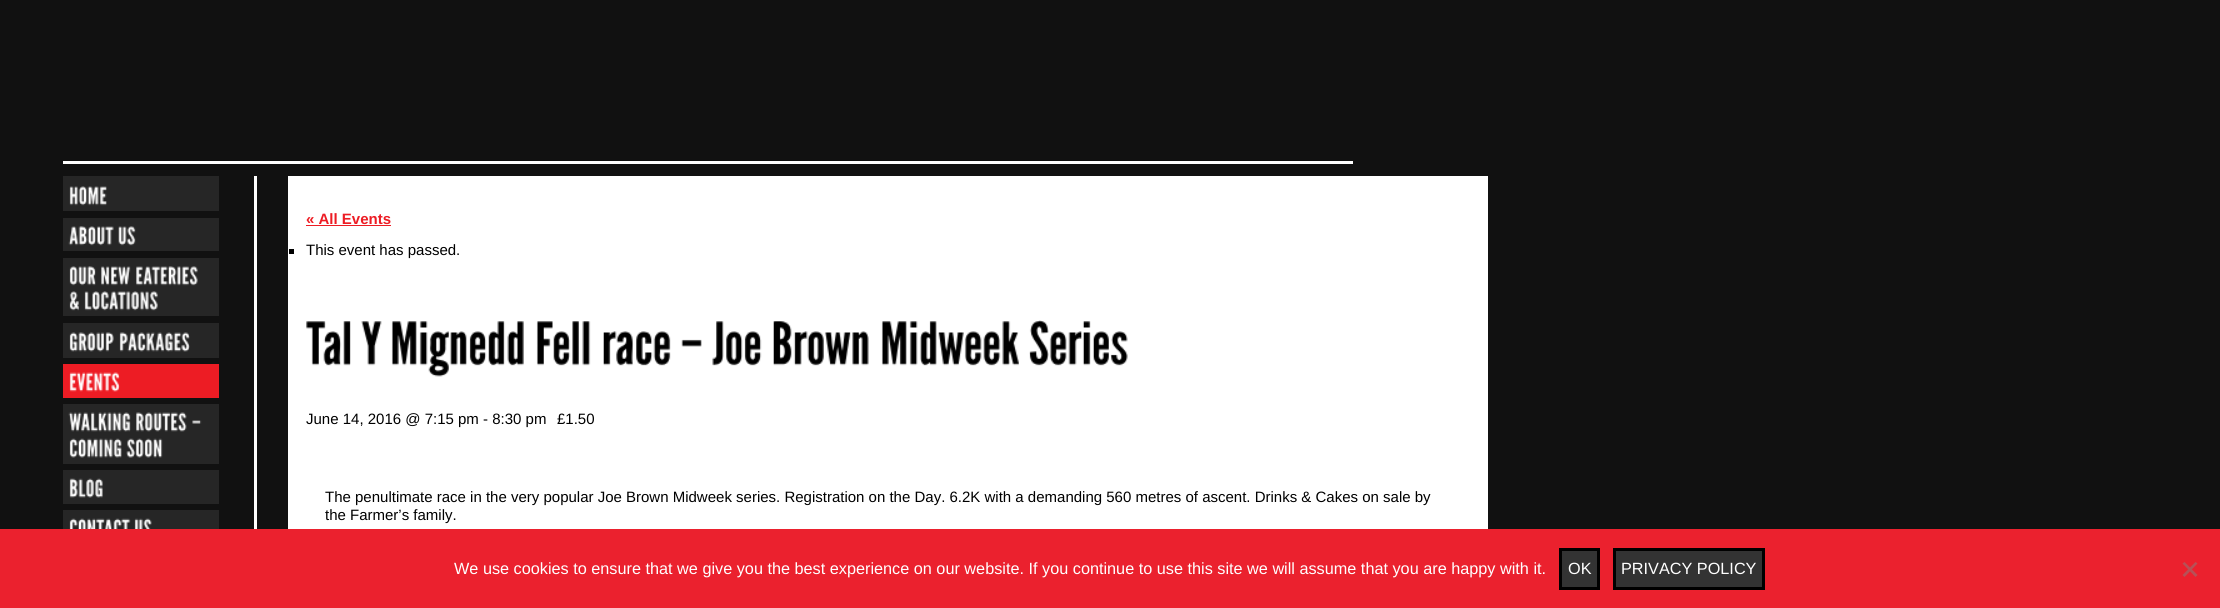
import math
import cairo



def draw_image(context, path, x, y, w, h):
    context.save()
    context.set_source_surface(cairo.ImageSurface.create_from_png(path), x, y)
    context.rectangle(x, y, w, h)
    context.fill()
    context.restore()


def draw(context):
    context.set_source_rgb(17 / 255, 17 / 255, 17 / 255)
    context.paint()
    context.set_source_rgb(1, 1, 1)
    context.rectangle(63, 161, 1290, 3)
    context.fill()
    context.rectangle(254, 176, 3, 353)
    context.fill()
    context.set_source_rgb(38 / 255, 38 / 255, 38 / 255)
    context.rectangle(63, 176, 156, 35)
    context.fill()
    draw_image(context, "images/1.png", 69, 186, 38, 20)
    context.rectangle(63, 218, 156, 33)
    context.fill()
    draw_image(context, "images/2.png", 68, 226, 46, 20)
    draw_image(context, "images/3.png", 118, 226, 18, 20)
    context.rectangle(63, 258, 156, 58)
    context.fill()
    draw_image(context, "images/4.png", 69, 266, 27, 20)
    draw_image(context, "images/5.png", 101, 266, 30, 20)
    draw_image(context, "images/6.png", 136, 266, 62, 20)
    draw_image(context, "images/7.png", 69, 291, 10, 20)
    draw_image(context, "images/8.png", 84, 291, 74, 20)
    context.rectangle(63, 323, 156, 35)
    context.fill()
    draw_image(context, "images/9.png", 69, 332, 45, 20)
    draw_image(context, "images/10.png", 119, 332, 71, 20)
    context.set_source_rgb(237 / 255, 28 / 255, 36 / 255)
    context.rectangle(63, 364, 156, 34)
    context.fill()
    draw_image(context, "images/11.png", 69, 372, 51, 20)
    context.set_source_rgb(38 / 255, 38 / 255, 38 / 255)
    context.rectangle(63, 404, 156, 60)
    context.fill()
    draw_image(context, "images/12.png", 68, 412, 63, 20)
    draw_image(context, "images/13.png", 136, 412, 51, 20)
    draw_image(context, "images/14.png", 192, 420, 10, 4)
    draw_image(context, "images/15.png", 69, 438, 53, 20)
    draw_image(context, "images/16.png", 126, 438, 37, 20)
    context.rectangle(63, 470, 156, 34)
    context.fill()
    draw_image(context, "images/17.png", 69, 478, 34, 20)
    context.rectangle(63, 510, 156, 19)
    context.fill()
    draw_image(context, "images/18.png", 69, 518, 62, 11)
    draw_image(context, "images/19.png", 134, 518, 18, 11)
    context.set_source_rgb(1, 1, 1)
    context.rectangle(288, 176, 1200, 353)
    context.fill()
    context.set_source_rgb(237 / 255, 28 / 255, 36 / 255)
    context.rectangle(306, 225, 85, 1)
    context.fill()
    context.set_source_rgb(0, 0, 0)
    context.rectangle(289, 249, 5, 5)
    context.fill()
    draw_image(context, "images/20.png", 306, 321, 45, 45)
    draw_image(context, "images/21.png", 361, 321, 21, 45)
    draw_image(context, "images/22.png", 391, 321, 133, 56)
    draw_image(context, "images/23.png", 536, 321, 55, 45)
    draw_image(context, "images/24.png", 603, 331, 68, 35)
    draw_image(context, "images/25.png", 681, 339, 21, 8)
    draw_image(context, "images/26.png", 712, 321, 50, 45)
    draw_image(context, "images/27.png", 773, 321, 96, 45)
    draw_image(context, "images/28.png", 881, 321, 138, 45)
    draw_image(context, "images/29.png", 1029, 320, 99, 46)
    context.set_source_rgb(235 / 255, 33 / 255, 46 / 255)
    context.rectangle(0, 529, 2220, 79)
    context.fill()
    context.set_source_rgb(51 / 255, 51 / 255, 51 / 255)
    context.rectangle(1560.5, 549.5, 38, 39)
    context.fill_preserve()
    context.set_source_rgb(0, 0, 0)
    context.set_line_width(3)
    context.stroke()
    context.set_source_rgb(51 / 255, 51 / 255, 51 / 255)
    context.rectangle(1614.5, 549.5, 149, 39)
    context.fill_preserve()
    context.set_source_rgb(0, 0, 0)
    context.stroke()
    context.set_source_rgb(182 / 255, 81 / 255, 87 / 255)
    context.new_path()
    context.move_to(2195.5, 562)
    context.line_to(2197.5, 563.5)
    context.line_to(2184.5, 577)
    context.line_to(2182.5, 575)
    context.close_path()
    context.fill()
    context.new_path()
    context.move_to(2182.5, 563.5)
    context.line_to(2184.5, 562)
    context.line_to(2197.5, 575)
    context.line_to(2195.5, 577)
    context.close_path()
    context.fill()
    context.select_font_face("Liberation Sans", cairo.FontSlant.NORMAL, cairo.FontWeight.BOLD)
    context.set_font_size(15)
    context.set_source_rgb(237 / 255, 28 / 255, 36 / 255)
    context.move_to(306, 224)
    context.show_text("« All Events")
    context.select_font_face("Liberation Sans")
    context.set_source_rgb(0, 0, 0)
    context.move_to(306, 255)
    context.show_text("This event has passed.")
    context.move_to(306, 424)
    context.show_text("June 14, 2016 @ 7:15 pm - 8:30 pm")
    context.move_to(557, 424)
    context.show_text("£1.50")
    context.move_to(325, 502)
    context.show_text("The penultimate race in the very popular Joe Brown Midweek series. Registration on the Day. 6.2K with a demanding 560 metres of ascent. Drinks & Cakes on sale by")
    context.move_to(325, 520)
    context.show_text("the Farmer’s family.")
    context.set_font_size(16.25)
    context.set_source_rgb(1, 1, 1)
    context.move_to(454, 574)
    context.show_text("We use cookies to ensure that we give you the best experience on our website. If you continue to use this site we will assume that you are happy with it.")
    context.move_to(1568, 574)
    context.show_text("OK")
    context.move_to(1621, 574)
    context.show_text("PRIVACY POLICY")


surface = cairo.ImageSurface(cairo.Format.RGB24, 2220, 608)
context = cairo.Context(surface)
options = cairo.FontOptions()
options.set_hint_metrics(cairo.HintMetrics.OFF)
options.set_hint_style(cairo.HintStyle.NONE)
context.set_font_options(options)
context.set_miter_limit(4)
draw(context)
surface.write_to_png("out.png")
